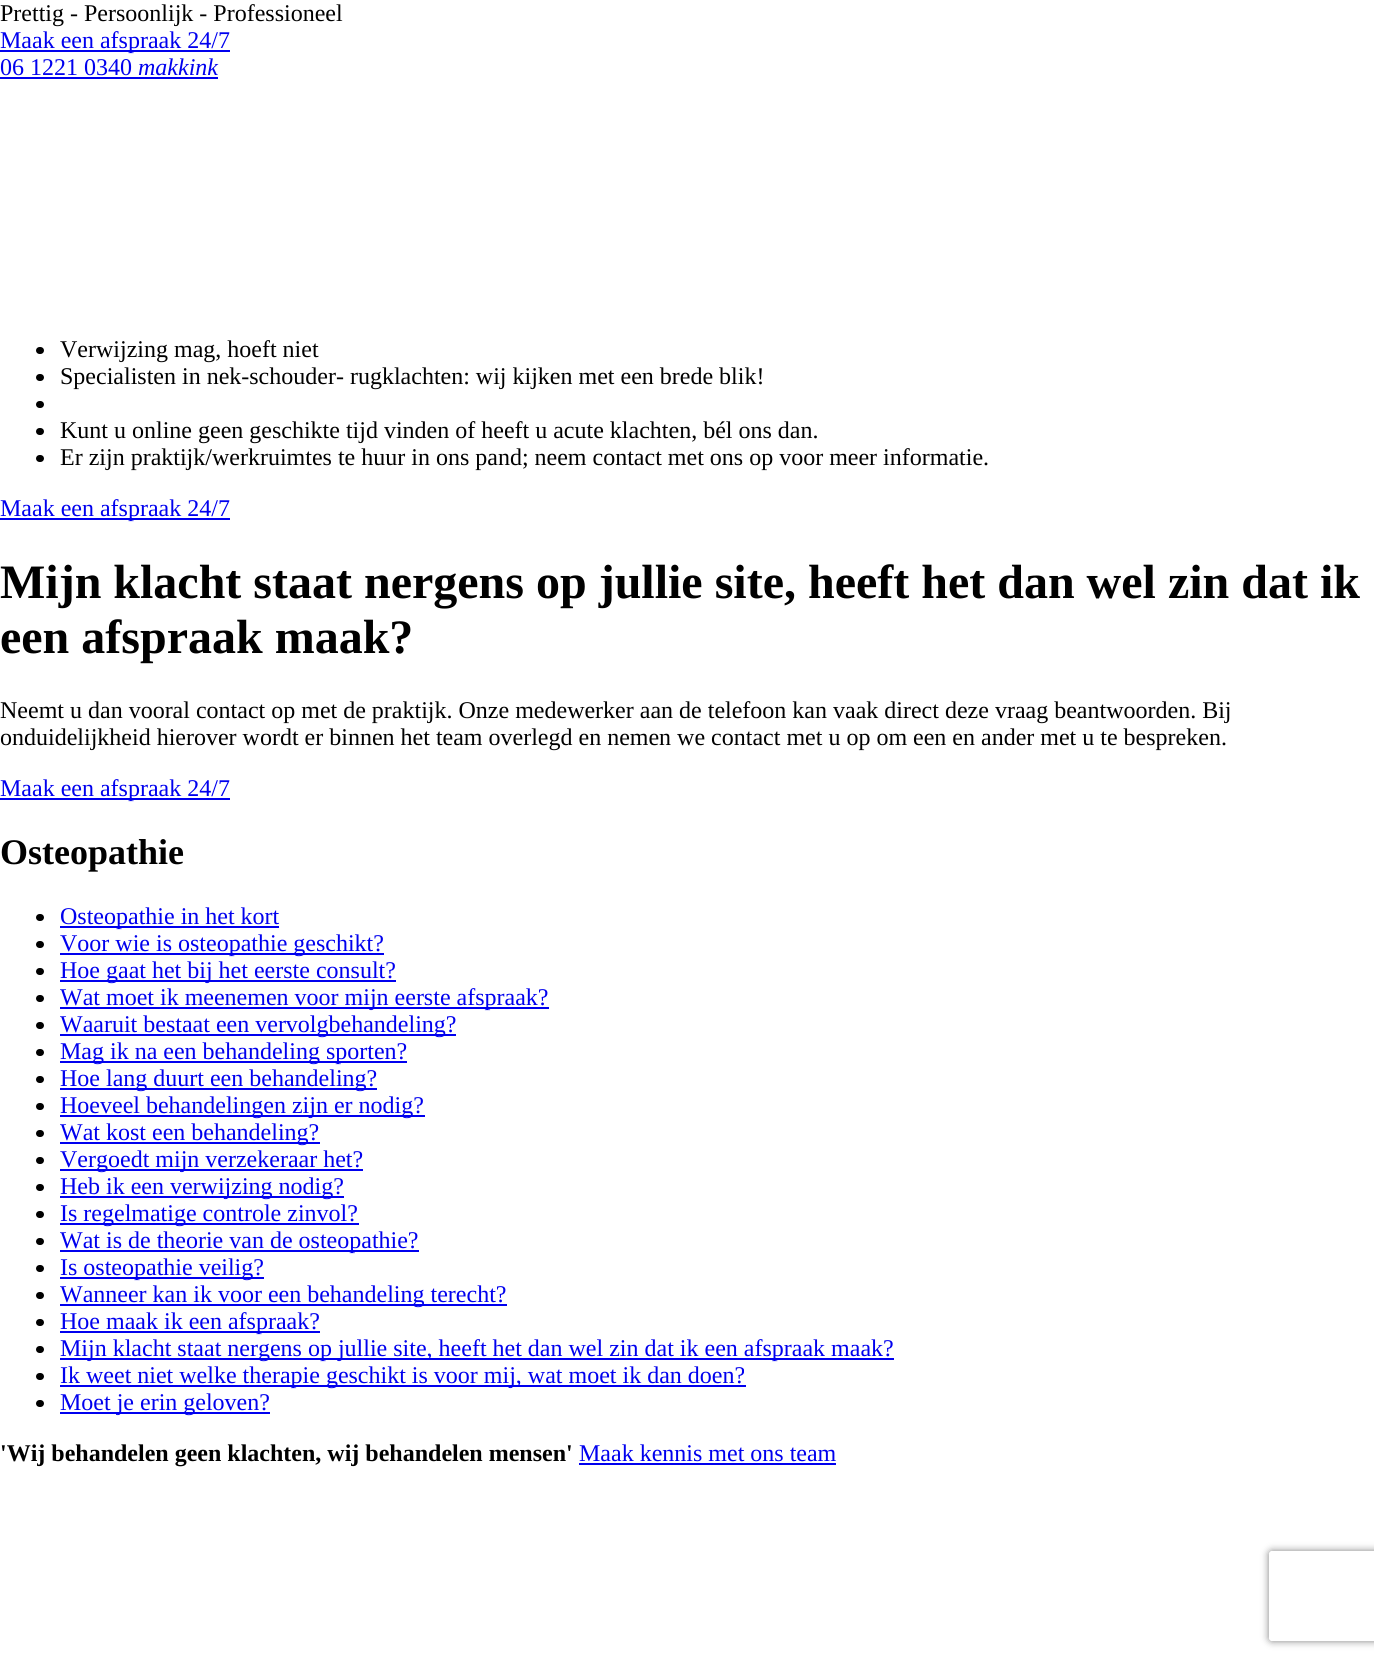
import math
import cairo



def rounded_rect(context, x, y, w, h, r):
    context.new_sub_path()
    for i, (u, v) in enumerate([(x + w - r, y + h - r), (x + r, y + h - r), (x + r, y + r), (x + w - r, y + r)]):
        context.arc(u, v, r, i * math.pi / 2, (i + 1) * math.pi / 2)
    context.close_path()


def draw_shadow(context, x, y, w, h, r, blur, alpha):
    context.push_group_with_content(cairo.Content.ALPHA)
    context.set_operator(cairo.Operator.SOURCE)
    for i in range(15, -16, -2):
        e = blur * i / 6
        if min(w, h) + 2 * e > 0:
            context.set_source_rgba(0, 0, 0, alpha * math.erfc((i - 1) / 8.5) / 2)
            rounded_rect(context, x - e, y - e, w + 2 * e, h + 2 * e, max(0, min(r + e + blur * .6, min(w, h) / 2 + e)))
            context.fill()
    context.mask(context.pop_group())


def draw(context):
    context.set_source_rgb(1, 1, 1)
    context.paint()
    context.set_source_rgb(0, 0, 238 / 255)
    context.rectangle(0, 50, 230, 2)
    context.fill()
    context.rectangle(0, 77, 218, 2)
    context.fill()
    context.set_source_rgb(0, 0, 0)
    rounded_rect(context, 36, 347, 8, 7, 3.5)
    context.fill()
    rounded_rect(context, 36, 374, 8, 7, 3.5)
    context.fill()
    rounded_rect(context, 36, 401, 8, 7, 3.5)
    context.fill()
    rounded_rect(context, 36, 428, 8, 7, 3.5)
    context.fill()
    rounded_rect(context, 36, 455, 8, 7, 3.5)
    context.fill()
    context.set_source_rgb(0, 0, 238 / 255)
    context.rectangle(0, 518, 230, 2)
    context.fill()
    context.rectangle(0, 798, 230, 2)
    context.fill()
    context.set_source_rgb(0, 0, 0)
    rounded_rect(context, 36, 914, 8, 7, 3.5)
    context.fill()
    context.set_source_rgb(0, 0, 238 / 255)
    context.rectangle(60, 926, 219, 2)
    context.fill()
    context.set_source_rgb(0, 0, 0)
    rounded_rect(context, 36, 941, 8, 7, 3.5)
    context.fill()
    context.set_source_rgb(0, 0, 238 / 255)
    context.rectangle(60, 953, 324, 2)
    context.fill()
    context.set_source_rgb(0, 0, 0)
    rounded_rect(context, 36, 968, 8, 7, 3.5)
    context.fill()
    context.set_source_rgb(0, 0, 238 / 255)
    context.rectangle(60, 980, 336, 2)
    context.fill()
    context.set_source_rgb(0, 0, 0)
    rounded_rect(context, 36, 995, 8, 7, 3.5)
    context.fill()
    context.set_source_rgb(0, 0, 238 / 255)
    context.rectangle(60, 1007, 489, 2)
    context.fill()
    context.set_source_rgb(0, 0, 0)
    rounded_rect(context, 36, 1022, 8, 7, 3.5)
    context.fill()
    context.set_source_rgb(0, 0, 238 / 255)
    context.rectangle(60, 1034, 396, 2)
    context.fill()
    context.set_source_rgb(0, 0, 0)
    rounded_rect(context, 36, 1049, 8, 7, 3.5)
    context.fill()
    context.set_source_rgb(0, 0, 238 / 255)
    context.rectangle(60, 1061, 347, 2)
    context.fill()
    context.set_source_rgb(0, 0, 0)
    rounded_rect(context, 36, 1076, 8, 7, 3.5)
    context.fill()
    context.set_source_rgb(0, 0, 238 / 255)
    context.rectangle(60, 1088, 317, 2)
    context.fill()
    context.set_source_rgb(0, 0, 0)
    rounded_rect(context, 36, 1103, 8, 7, 3.5)
    context.fill()
    context.set_source_rgb(0, 0, 238 / 255)
    context.rectangle(60, 1115, 365, 2)
    context.fill()
    context.set_source_rgb(0, 0, 0)
    rounded_rect(context, 36, 1130, 8, 7, 3.5)
    context.fill()
    context.set_source_rgb(0, 0, 238 / 255)
    context.rectangle(60, 1142, 260, 2)
    context.fill()
    context.set_source_rgb(0, 0, 0)
    rounded_rect(context, 36, 1157, 8, 7, 3.5)
    context.fill()
    context.set_source_rgb(0, 0, 238 / 255)
    context.rectangle(60, 1169, 303, 2)
    context.fill()
    context.set_source_rgb(0, 0, 0)
    rounded_rect(context, 36, 1184, 8, 7, 3.5)
    context.fill()
    context.set_source_rgb(0, 0, 238 / 255)
    context.rectangle(60, 1196, 284, 2)
    context.fill()
    context.set_source_rgb(0, 0, 0)
    rounded_rect(context, 36, 1211, 8, 7, 3.5)
    context.fill()
    context.set_source_rgb(0, 0, 238 / 255)
    context.rectangle(60, 1223, 299, 2)
    context.fill()
    context.set_source_rgb(0, 0, 0)
    rounded_rect(context, 36, 1238, 8, 7, 3.5)
    context.fill()
    context.set_source_rgb(0, 0, 238 / 255)
    context.rectangle(60, 1250, 359, 2)
    context.fill()
    context.set_source_rgb(0, 0, 0)
    rounded_rect(context, 36, 1265, 8, 7, 3.5)
    context.fill()
    context.set_source_rgb(0, 0, 238 / 255)
    context.rectangle(60, 1277, 204, 2)
    context.fill()
    context.set_source_rgb(0, 0, 0)
    rounded_rect(context, 36, 1292, 8, 7, 3.5)
    context.fill()
    context.set_source_rgb(0, 0, 238 / 255)
    context.rectangle(60, 1304, 447, 2)
    context.fill()
    context.set_source_rgb(0, 0, 0)
    rounded_rect(context, 36, 1319, 8, 7, 3.5)
    context.fill()
    context.set_source_rgb(0, 0, 238 / 255)
    context.rectangle(60, 1331, 260, 2)
    context.fill()
    context.set_source_rgb(0, 0, 0)
    rounded_rect(context, 36, 1346, 8, 7, 3.5)
    context.fill()
    context.set_source_rgb(0, 0, 238 / 255)
    context.rectangle(60, 1358, 834, 2)
    context.fill()
    context.set_source_rgb(0, 0, 0)
    rounded_rect(context, 36, 1373, 8, 7, 3.5)
    context.fill()
    context.set_source_rgb(0, 0, 238 / 255)
    context.rectangle(60, 1385, 686, 2)
    context.fill()
    context.set_source_rgb(0, 0, 0)
    rounded_rect(context, 36, 1400, 8, 7, 3.5)
    context.fill()
    context.set_source_rgb(0, 0, 238 / 255)
    context.rectangle(60, 1412, 210, 2)
    context.fill()
    context.rectangle(579, 1463, 257, 2)
    context.fill()
    context.save()
    context.set_fill_rule(cairo.FillRule.EVEN_ODD)
    context.new_path()
    context.move_to(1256, 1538)
    context.line_to(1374, 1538)
    context.line_to(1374, 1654)
    context.line_to(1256, 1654)
    context.close_path()
    context.move_to(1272, 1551)
    context.line_to(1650, 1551)
    context.curve_to(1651.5, 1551, 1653, 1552.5, 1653, 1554)
    context.line_to(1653, 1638)
    context.curve_to(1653, 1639.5, 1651.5, 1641, 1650, 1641)
    context.line_to(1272, 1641)
    context.curve_to(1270.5, 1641, 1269, 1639.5, 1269, 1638)
    context.line_to(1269, 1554)
    context.curve_to(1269, 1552.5, 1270.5, 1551, 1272, 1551)
    context.close_path()
    context.clip()
    context.set_source_rgb(128 / 255, 128 / 255, 128 / 255)
    draw_shadow(context, 1269, 1551, 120, 90, 3, 4, 1)
    context.restore()
    context.select_font_face("Liberation Serif")
    context.set_font_size(24)
    context.set_source_rgb(0, 0, 0)
    context.move_to(0, 21)
    context.show_text("Prettig - Persoonlijk - Professioneel")
    context.set_source_rgb(0, 0, 238 / 255)
    context.move_to(0, 48)
    context.show_text("Maak een afspraak 24/7")
    context.move_to(0, 75)
    context.show_text("06 1221 0340")
    context.select_font_face("Liberation Serif", cairo.FontSlant.ITALIC)
    context.move_to(138, 75)
    context.show_text("makkink")
    context.select_font_face("Liberation Serif")
    context.set_source_rgb(0, 0, 0)
    context.move_to(60, 357)
    context.show_text("Verwijzing mag, hoeft niet")
    context.move_to(60, 384)
    context.show_text("Specialisten in nek-schouder- rugklachten: wij kijken met een brede blik!")
    context.move_to(60, 438)
    context.show_text("Kunt u online geen geschikte tijd vinden of heeft u acute klachten, bél ons dan.")
    context.move_to(60, 465)
    context.show_text("Er zijn praktijk/werkruimtes te huur in ons pand; neem contact met ons op voor meer informatie.")
    context.set_source_rgb(0, 0, 238 / 255)
    context.move_to(0, 516)
    context.show_text("Maak een afspraak 24/7")
    context.select_font_face("Liberation Serif", cairo.FontSlant.NORMAL, cairo.FontWeight.BOLD)
    context.set_font_size(48)
    context.set_source_rgb(0, 0, 0)
    context.move_to(0, 598)
    context.show_text("Mijn klacht staat nergens op jullie site, heeft het dan wel zin dat ik")
    context.move_to(0, 653)
    context.show_text("een afspraak maak?")
    context.select_font_face("Liberation Serif")
    context.set_font_size(24)
    context.move_to(0, 718)
    context.show_text("Neemt u dan vooral contact op met de praktijk. Onze medewerker aan de telefoon kan vaak direct deze vraag beantwoorden. Bij")
    context.move_to(0, 745)
    context.show_text("onduidelijkheid hierover wordt er binnen het team overlegd en nemen we contact met u op om een en ander met u te bespreken.")
    context.set_source_rgb(0, 0, 238 / 255)
    context.move_to(0, 796)
    context.show_text("Maak een afspraak 24/7")
    context.select_font_face("Liberation Serif", cairo.FontSlant.NORMAL, cairo.FontWeight.BOLD)
    context.set_font_size(36)
    context.set_source_rgb(0, 0, 0)
    context.move_to(0, 864)
    context.show_text("Osteopathie")
    context.select_font_face("Liberation Serif")
    context.set_font_size(24)
    context.set_source_rgb(0, 0, 238 / 255)
    context.move_to(60, 924)
    context.show_text("Osteopathie in het kort")
    context.move_to(60, 951)
    context.show_text("Voor wie is osteopathie geschikt?")
    context.move_to(60, 978)
    context.show_text("Hoe gaat het bij het eerste consult?")
    context.move_to(60, 1005)
    context.show_text("Wat moet ik meenemen voor mijn eerste afspraak?")
    context.move_to(60, 1032)
    context.show_text("Waaruit bestaat een vervolgbehandeling?")
    context.move_to(60, 1059)
    context.show_text("Mag ik na een behandeling sporten?")
    context.move_to(60, 1086)
    context.show_text("Hoe lang duurt een behandeling?")
    context.move_to(60, 1113)
    context.show_text("Hoeveel behandelingen zijn er nodig?")
    context.move_to(60, 1140)
    context.show_text("Wat kost een behandeling?")
    context.move_to(60, 1167)
    context.show_text("Vergoedt mijn verzekeraar het?")
    context.move_to(60, 1194)
    context.show_text("Heb ik een verwijzing nodig?")
    context.move_to(60, 1221)
    context.show_text("Is regelmatige controle zinvol?")
    context.move_to(60, 1248)
    context.show_text("Wat is de theorie van de osteopathie?")
    context.move_to(60, 1275)
    context.show_text("Is osteopathie veilig?")
    context.move_to(60, 1302)
    context.show_text("Wanneer kan ik voor een behandeling terecht?")
    context.move_to(60, 1329)
    context.show_text("Hoe maak ik een afspraak?")
    context.move_to(60, 1356)
    context.show_text("Mijn klacht staat nergens op jullie site, heeft het dan wel zin dat ik een afspraak maak?")
    context.move_to(60, 1383)
    context.show_text("Ik weet niet welke therapie geschikt is voor mij, wat moet ik dan doen?")
    context.move_to(60, 1410)
    context.show_text("Moet je erin geloven?")
    context.select_font_face("Liberation Serif", cairo.FontSlant.NORMAL, cairo.FontWeight.BOLD)
    context.set_source_rgb(0, 0, 0)
    context.move_to(0, 1461)
    context.show_text("'Wij behandelen geen klachten, wij behandelen mensen'")
    context.select_font_face("Liberation Serif")
    context.set_source_rgb(0, 0, 238 / 255)
    context.move_to(579, 1461)
    context.show_text("Maak kennis met ons team")


surface = cairo.ImageSurface(cairo.Format.RGB24, 1374, 1662)
context = cairo.Context(surface)
options = cairo.FontOptions()
options.set_hint_metrics(cairo.HintMetrics.OFF)
options.set_hint_style(cairo.HintStyle.NONE)
context.set_font_options(options)
context.set_miter_limit(4)
draw(context)
surface.write_to_png("out.png")
